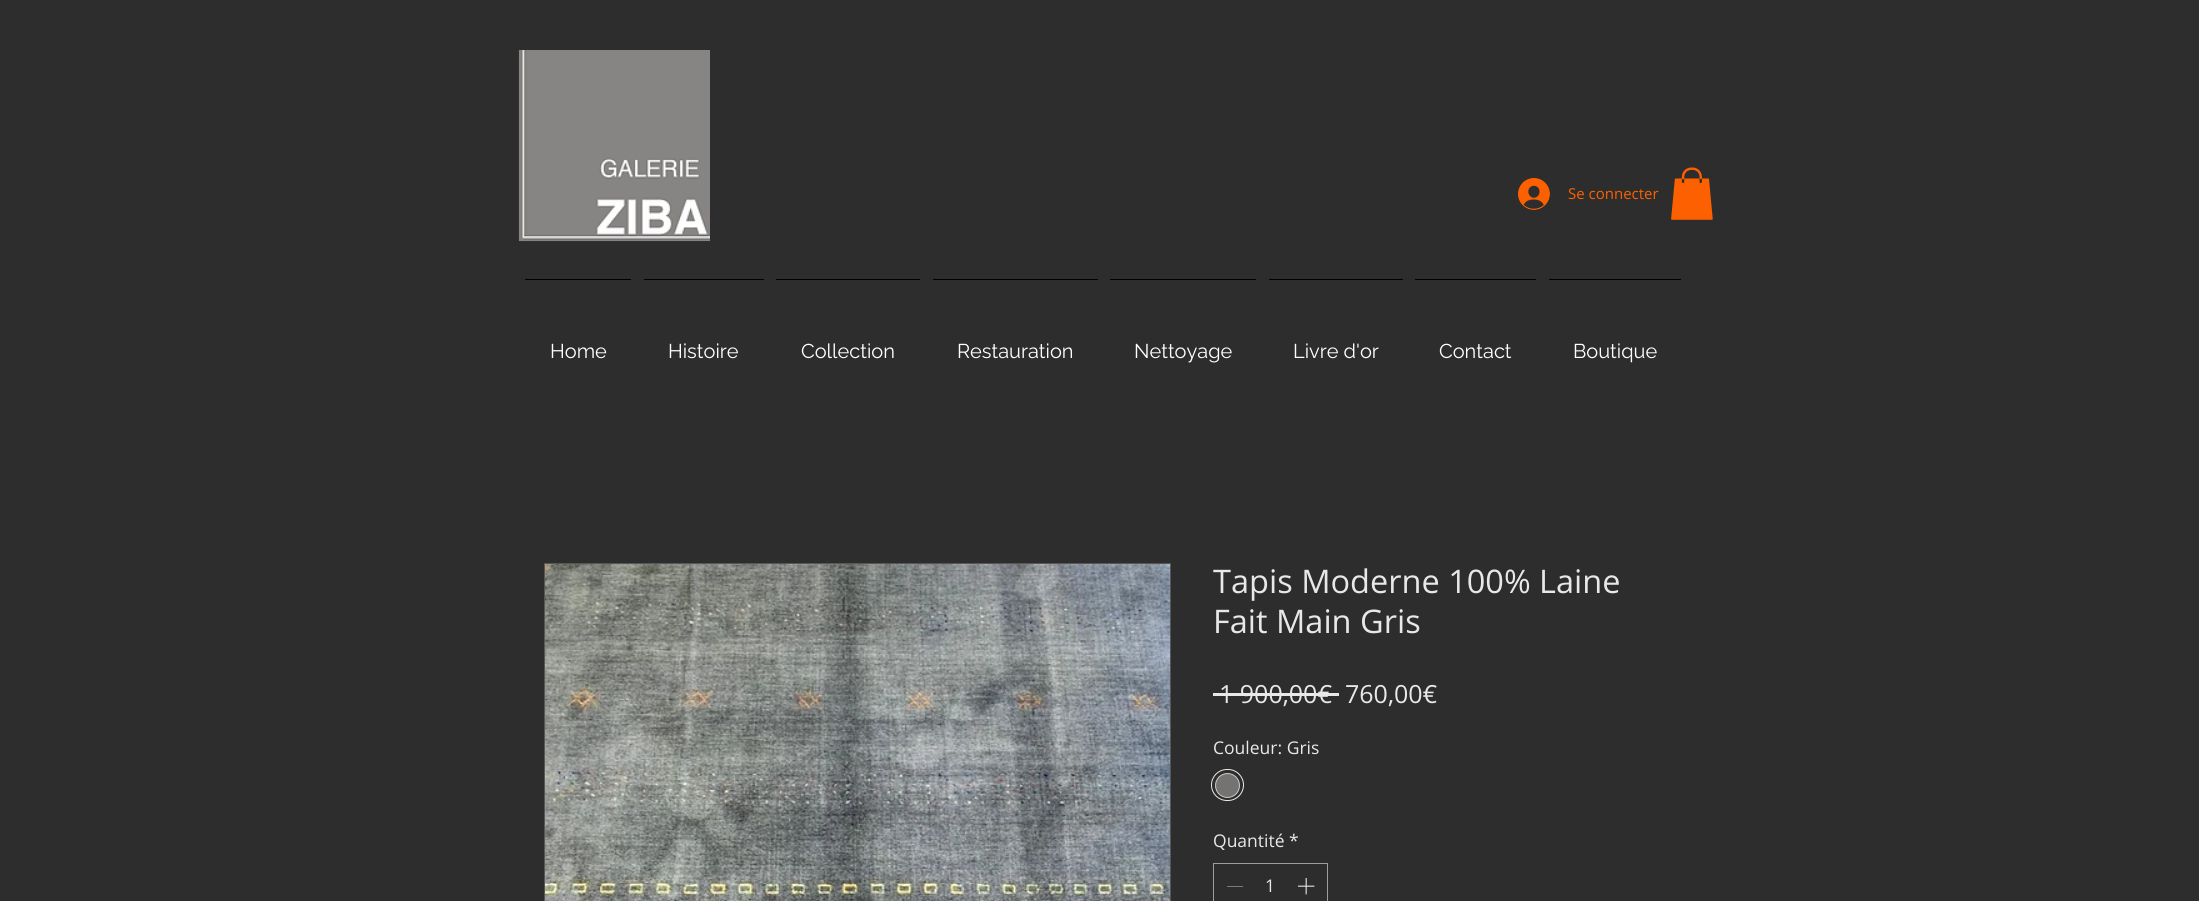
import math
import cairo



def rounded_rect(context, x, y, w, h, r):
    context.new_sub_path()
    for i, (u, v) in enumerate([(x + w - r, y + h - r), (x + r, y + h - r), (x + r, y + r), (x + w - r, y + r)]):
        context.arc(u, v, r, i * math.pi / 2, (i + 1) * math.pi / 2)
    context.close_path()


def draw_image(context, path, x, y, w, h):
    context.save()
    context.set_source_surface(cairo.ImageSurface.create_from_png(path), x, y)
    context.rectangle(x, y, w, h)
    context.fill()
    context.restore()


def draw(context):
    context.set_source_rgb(45 / 255, 45 / 255, 45 / 255)
    context.paint()
    draw_image(context, "images/1.png", 518, 50, 192, 192)
    draw_image(context, "images/2.png", 1518, 178, 32, 32)
    draw_image(context, "images/3.png", 1671, 167, 42, 53)
    context.set_source_rgb(0, 0, 0)
    context.rectangle(525, 279, 106, 1)
    context.fill()
    context.rectangle(644, 279, 120, 1)
    context.fill()
    context.rectangle(776, 279, 144, 1)
    context.fill()
    context.rectangle(933, 279, 165, 1)
    context.fill()
    context.rectangle(1110, 279, 146, 1)
    context.fill()
    context.rectangle(1269, 279, 134, 1)
    context.fill()
    context.rectangle(1415, 279, 121, 1)
    context.fill()
    context.rectangle(1549, 279, 132, 1)
    context.fill()
    context.rectangle(544.5, 563.5, 626, 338)
    context.set_source_rgb(87 / 255, 87 / 255, 87 / 255)
    context.set_line_width(1)
    context.stroke()
    draw_image(context, "images/4.png", 545, 564, 625, 337)
    context.set_source_rgb(232 / 255, 232 / 255, 232 / 255)
    context.rectangle(1213, 693, 126, 3)
    context.fill()
    rounded_rect(context, 1211.5, 769.5, 32, 31, 15.5)
    context.stroke()
    context.set_source_rgb(117 / 255, 114 / 255, 114 / 255)
    context.arc(1227.5, 785.5, 12, 0, 2 * math.pi)
    context.fill_preserve()
    context.set_source_rgb(201 / 255, 201 / 255, 201 / 255)
    context.stroke()
    context.rectangle(1213.5, 863.5, 114, 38)
    context.set_source_rgb(157 / 255, 157 / 255, 157 / 255)
    context.stroke()
    context.set_source_rgb(122 / 255, 122 / 255, 122 / 255)
    context.rectangle(1227, 886, 16, 1)
    context.fill()
    draw_image(context, "images/5.png", 1298, 878, 17, 17)
    context.select_font_face("Open Sans")
    context.set_font_size(15)
    context.set_source_rgb(252 / 255, 96 / 255, 0)
    context.move_to(1568, 199)
    context.show_text("Se connecter")
    context.select_font_face("Raleway")
    context.set_font_size(20)
    context.set_source_rgb(1, 1, 1)
    context.move_to(550, 358)
    context.show_text("Home")
    context.move_to(668, 358)
    context.show_text("Histoire")
    context.move_to(801, 358)
    context.show_text("Collection")
    context.move_to(957, 358)
    context.show_text("Restauration")
    context.move_to(1134, 358)
    context.show_text("Nettoyage")
    context.move_to(1293, 358)
    context.show_text("Livre d'or")
    context.move_to(1439, 358)
    context.show_text("Contact")
    context.move_to(1573, 358)
    context.show_text("Boutique")
    context.select_font_face("Open Sans")
    context.set_font_size(32.5)
    context.set_source_rgb(232 / 255, 232 / 255, 232 / 255)
    context.move_to(1213, 593)
    context.show_text("Tapis Moderne 100% Laine")
    context.move_to(1213, 633)
    context.show_text("Fait Main Gris")
    context.set_font_size(25)
    context.move_to(1219, 703)
    context.show_text("1 900,00€")
    context.move_to(1345, 703)
    context.show_text("760,00€")
    context.set_font_size(17.5)
    context.move_to(1213, 754)
    context.show_text("Couleur: Gris")
    context.move_to(1213, 847)
    context.show_text("Quantité")
    context.move_to(1289, 847)
    context.show_text("*")
    context.move_to(1265, 892)
    context.show_text("1")


surface = cairo.ImageSurface(cairo.Format.RGB24, 2199, 901)
context = cairo.Context(surface)
options = cairo.FontOptions()
options.set_hint_metrics(cairo.HintMetrics.OFF)
options.set_hint_style(cairo.HintStyle.NONE)
context.set_font_options(options)
context.set_miter_limit(4)
draw(context)
surface.write_to_png("out.png")
